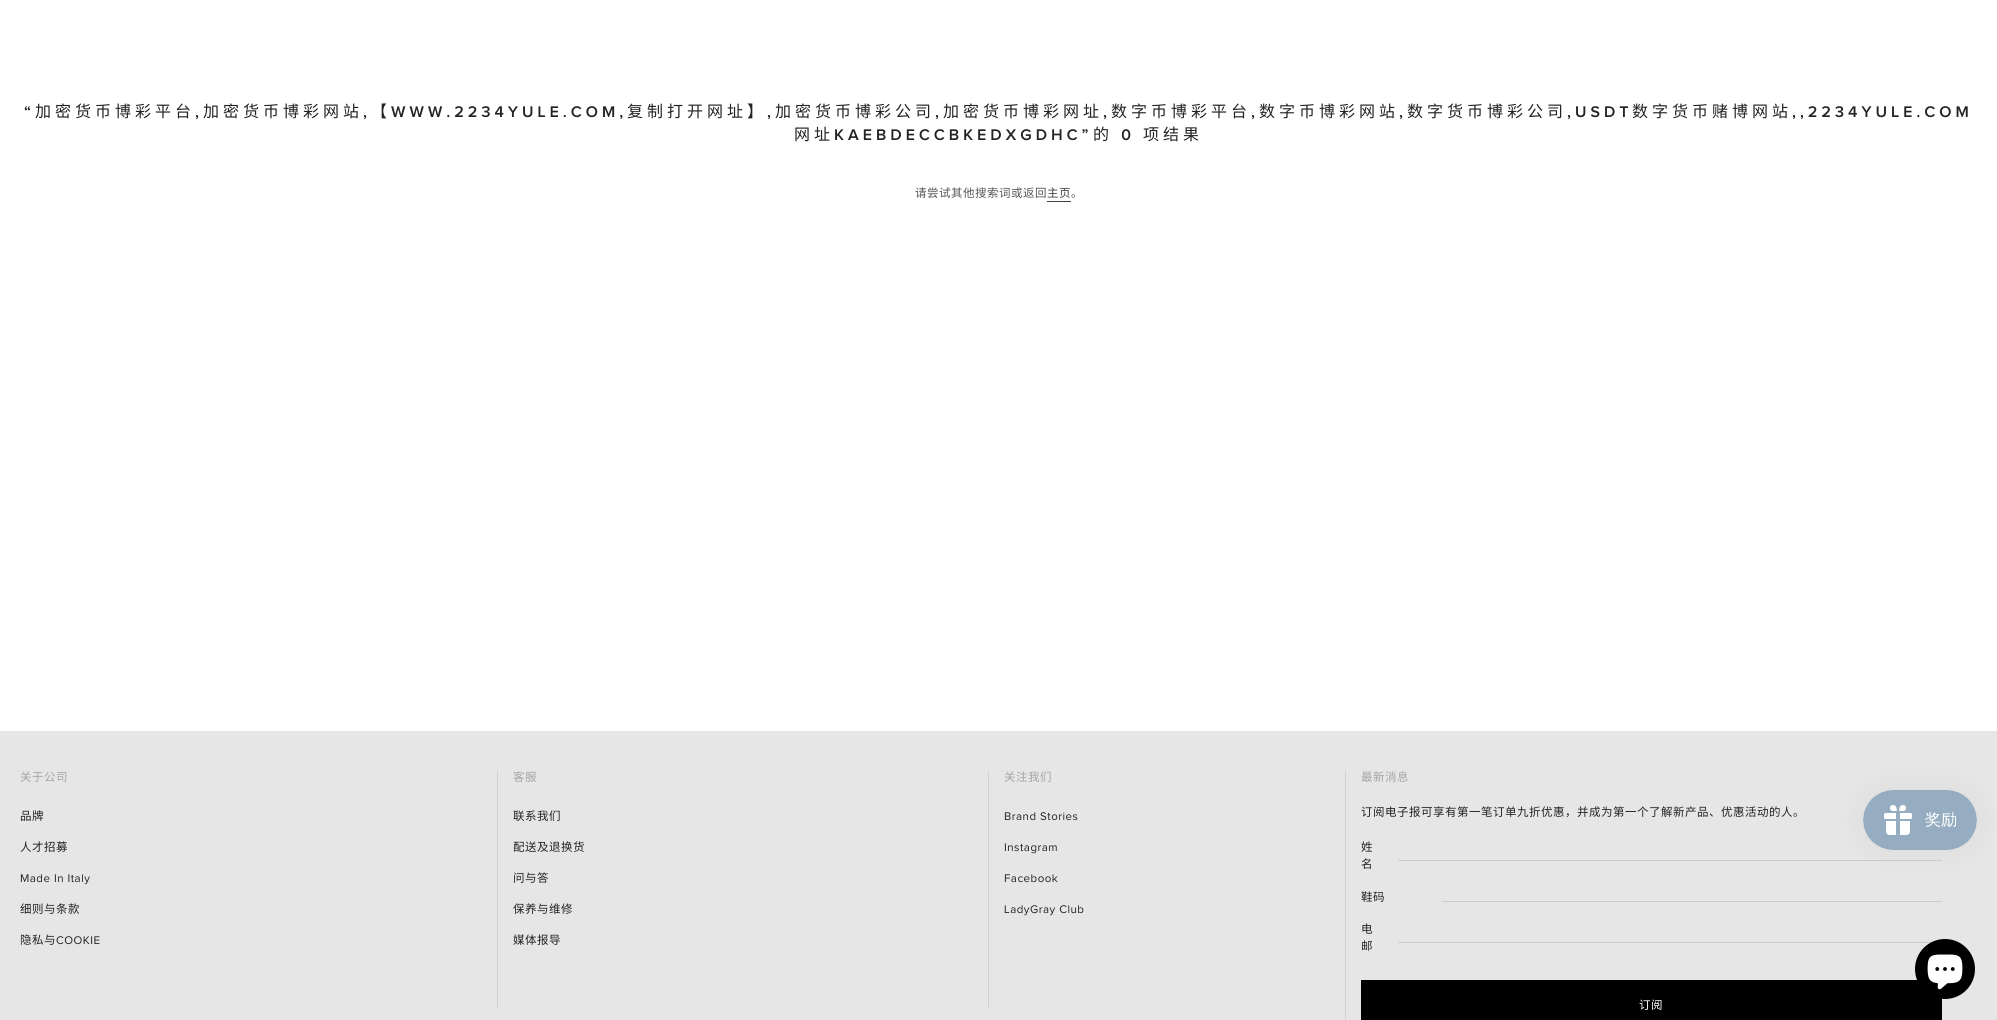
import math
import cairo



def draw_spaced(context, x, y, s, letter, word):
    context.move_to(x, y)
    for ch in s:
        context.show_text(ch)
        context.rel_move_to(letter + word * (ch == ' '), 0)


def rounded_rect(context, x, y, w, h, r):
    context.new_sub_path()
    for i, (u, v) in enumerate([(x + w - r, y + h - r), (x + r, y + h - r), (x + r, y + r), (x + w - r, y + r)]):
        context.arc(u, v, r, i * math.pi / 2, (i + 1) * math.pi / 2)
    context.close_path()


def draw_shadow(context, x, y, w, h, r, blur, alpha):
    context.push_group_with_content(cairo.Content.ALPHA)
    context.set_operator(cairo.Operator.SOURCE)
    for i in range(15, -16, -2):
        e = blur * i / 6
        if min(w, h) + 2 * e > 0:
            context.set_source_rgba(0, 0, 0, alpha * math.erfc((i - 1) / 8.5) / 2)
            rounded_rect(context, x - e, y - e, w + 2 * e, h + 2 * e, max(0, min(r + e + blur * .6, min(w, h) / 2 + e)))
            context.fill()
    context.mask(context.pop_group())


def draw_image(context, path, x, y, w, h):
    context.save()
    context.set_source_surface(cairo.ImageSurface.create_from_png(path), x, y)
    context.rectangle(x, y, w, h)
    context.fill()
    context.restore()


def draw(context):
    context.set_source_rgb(1, 1, 1)
    context.paint()
    draw_image(context, "images/1.png", 24, 106, 6, 5)
    draw_image(context, "images/2.png", 195, 115, 4, 4)
    draw_image(context, "images/2.png", 363, 115, 4, 4)
    draw_image(context, "images/3.png", 391, 106, 232, 13)
    draw_image(context, "images/2.png", 767, 115, 4, 4)
    draw_image(context, "images/2.png", 935, 115, 4, 4)
    draw_image(context, "images/2.png", 1103, 115, 4, 4)
    draw_image(context, "images/2.png", 1251, 115, 4, 4)
    draw_image(context, "images/2.png", 1399, 115, 4, 4)
    draw_image(context, "images/4.png", 1567, 106, 62, 13)
    draw_image(context, "images/5.png", 1792, 106, 176, 13)
    draw_image(context, "images/6.png", 835, 129, 253, 12)
    draw_image(context, "images/7.png", 1121, 129, 10, 12)
    context.set_source_rgb(61 / 255, 66 / 255, 70 / 255)
    context.rectangle(1047, 201, 24, 1)
    context.fill()
    context.set_source_rgb(230 / 255, 230 / 255, 230 / 255)
    context.rectangle(0, 731, 1997, 289)
    context.fill()
    context.set_source_rgb(210 / 255, 210 / 255, 210 / 255)
    context.rectangle(497, 771, 1, 237)
    context.fill()
    context.rectangle(988, 771, 1, 237)
    context.fill()
    context.rectangle(1345, 771, 1, 249)
    context.fill()
    context.set_source_rgb(204 / 255, 204 / 255, 204 / 255)
    context.rectangle(1398, 860, 544, 1)
    context.fill()
    context.rectangle(1442, 901, 500, 1)
    context.fill()
    context.rectangle(1398, 942, 534, 1)
    context.fill()
    context.set_source_rgb(0, 0, 0)
    context.rectangle(1361, 980, 581, 40)
    context.fill()
    context.set_source_rgb(0, 0, 0)
    draw_shadow(context, 1863, 790, 114, 60, 30, 12.5, 0.05)
    draw_image(context, "images/8.png", 1863, 790, 114, 60)
    context.set_source_rgb(0, 0, 0)
    context.arc(1945, 969, 30, 0, 2 * math.pi)
    context.fill()
    draw_image(context, "images/9.png", 1927, 954, 36, 36)
    context.select_font_face("Noto Sans CJK SC")
    context.set_font_size(16)
    context.set_source_rgb(34 / 255, 35 / 255, 35 / 255)
    draw_spaced(context, 35, 117, "加密货币博彩平台", 4, 0)
    draw_spaced(context, 203, 117, "加密货币博彩网站", 4, 0)
    draw_spaced(context, 371, 117, "【", 4, 0)
    draw_spaced(context, 627, 117, "复制打开网址】", 4, 0)
    draw_spaced(context, 775, 117, "加密货币博彩公司", 4, 0)
    draw_spaced(context, 943, 117, "加密货币博彩网址", 4, 0)
    draw_spaced(context, 1111, 117, "数字币博彩平台", 4, 0)
    draw_spaced(context, 1259, 117, "数字币博彩网站", 4, 0)
    draw_spaced(context, 1407, 117, "数字货币博彩公司", 4, 0)
    draw_spaced(context, 1632, 117, "数字货币赌博网站", 4, 0)
    draw_spaced(context, 794, 140, "网址", 4, 0)
    draw_spaced(context, 1093, 140, "的", 4, 0)
    draw_spaced(context, 1143, 140, "项结果", 4, 0)
    context.set_font_size(11.5)
    context.set_source_rgb(85 / 255, 85 / 255, 85 / 255)
    draw_spaced(context, 915, 197, "请尝试其他搜索词或返回", 0.5, 0)
    context.set_source_rgb(61 / 255, 66 / 255, 70 / 255)
    draw_spaced(context, 1047, 197, "主页", 0.5, 0)
    context.set_source_rgb(85 / 255, 85 / 255, 85 / 255)
    draw_spaced(context, 1071, 197, "。", 0.5, 0)
    context.set_source_rgb(165 / 255, 165 / 255, 165 / 255)
    draw_spaced(context, 20, 781, "关于公司", 0.5, 0)
    context.set_source_rgb(34 / 255, 35 / 255, 35 / 255)
    draw_spaced(context, 20, 820, "品牌", 0.5, 0)
    draw_spaced(context, 20, 851, "人才招募", 0.5, 0)
    context.select_font_face("Proxima Nova")
    draw_spaced(context, 20, 882, "Made In Italy", 0.5, 0)
    context.select_font_face("Noto Sans CJK SC")
    draw_spaced(context, 20, 913, "细则与条款", 0.5, 0)
    draw_spaced(context, 20, 944, "隐私与", 0.5, 0)
    context.select_font_face("Proxima Nova")
    draw_spaced(context, 56, 944, "COOKIE", 0.5, 0)
    context.select_font_face("Noto Sans CJK SC")
    context.set_source_rgb(165 / 255, 165 / 255, 165 / 255)
    draw_spaced(context, 513, 781, "客服", 0.5, 0)
    context.set_source_rgb(34 / 255, 35 / 255, 35 / 255)
    draw_spaced(context, 513, 820, "联系我们", 0.5, 0)
    draw_spaced(context, 513, 851, "配送及退换货", 0.5, 0)
    draw_spaced(context, 513, 882, "问与答", 0.5, 0)
    draw_spaced(context, 513, 913, "保养与维修", 0.5, 0)
    draw_spaced(context, 513, 944, "媒体报导", 0.5, 0)
    context.set_source_rgb(165 / 255, 165 / 255, 165 / 255)
    draw_spaced(context, 1004, 781, "关注我们", 0.5, 0)
    context.select_font_face("Proxima Nova")
    context.set_source_rgb(34 / 255, 35 / 255, 35 / 255)
    draw_spaced(context, 1004, 820, "Brand Stories", 0.5, 0)
    draw_spaced(context, 1004, 851, "Instagram", 0.5, 0)
    draw_spaced(context, 1004, 882, "Facebook", 0.5, 0)
    draw_spaced(context, 1004, 913, "LadyGray Club", 0.5, 0)
    context.select_font_face("Noto Sans CJK SC")
    context.set_source_rgb(165 / 255, 165 / 255, 165 / 255)
    draw_spaced(context, 1361, 781, "最新消息", 0.5, 0)
    context.set_source_rgb(34 / 255, 35 / 255, 35 / 255)
    draw_spaced(context, 1361, 816, "订阅电子报可享有第一笔订单九折优惠，并成为第一个了解新产品、优惠活动的人。", 0.5, 0)
    draw_spaced(context, 1361, 851, "姓", 0.5, 0)
    draw_spaced(context, 1361, 868, "名", 0.5, 0)
    draw_spaced(context, 1361, 901, "鞋码", 0.5, 0)
    draw_spaced(context, 1361, 933, "电", 0.5, 0)
    draw_spaced(context, 1361, 950, "邮", 0.5, 0)
    context.set_source_rgb(1, 1, 1)
    draw_spaced(context, 1639, 1009, "订阅", 0.5, 0)


surface = cairo.ImageSurface(cairo.Format.RGB24, 1997, 1020)
context = cairo.Context(surface)
options = cairo.FontOptions()
options.set_hint_metrics(cairo.HintMetrics.OFF)
options.set_hint_style(cairo.HintStyle.NONE)
context.set_font_options(options)
context.set_miter_limit(4)
draw(context)
surface.write_to_png("out.png")
